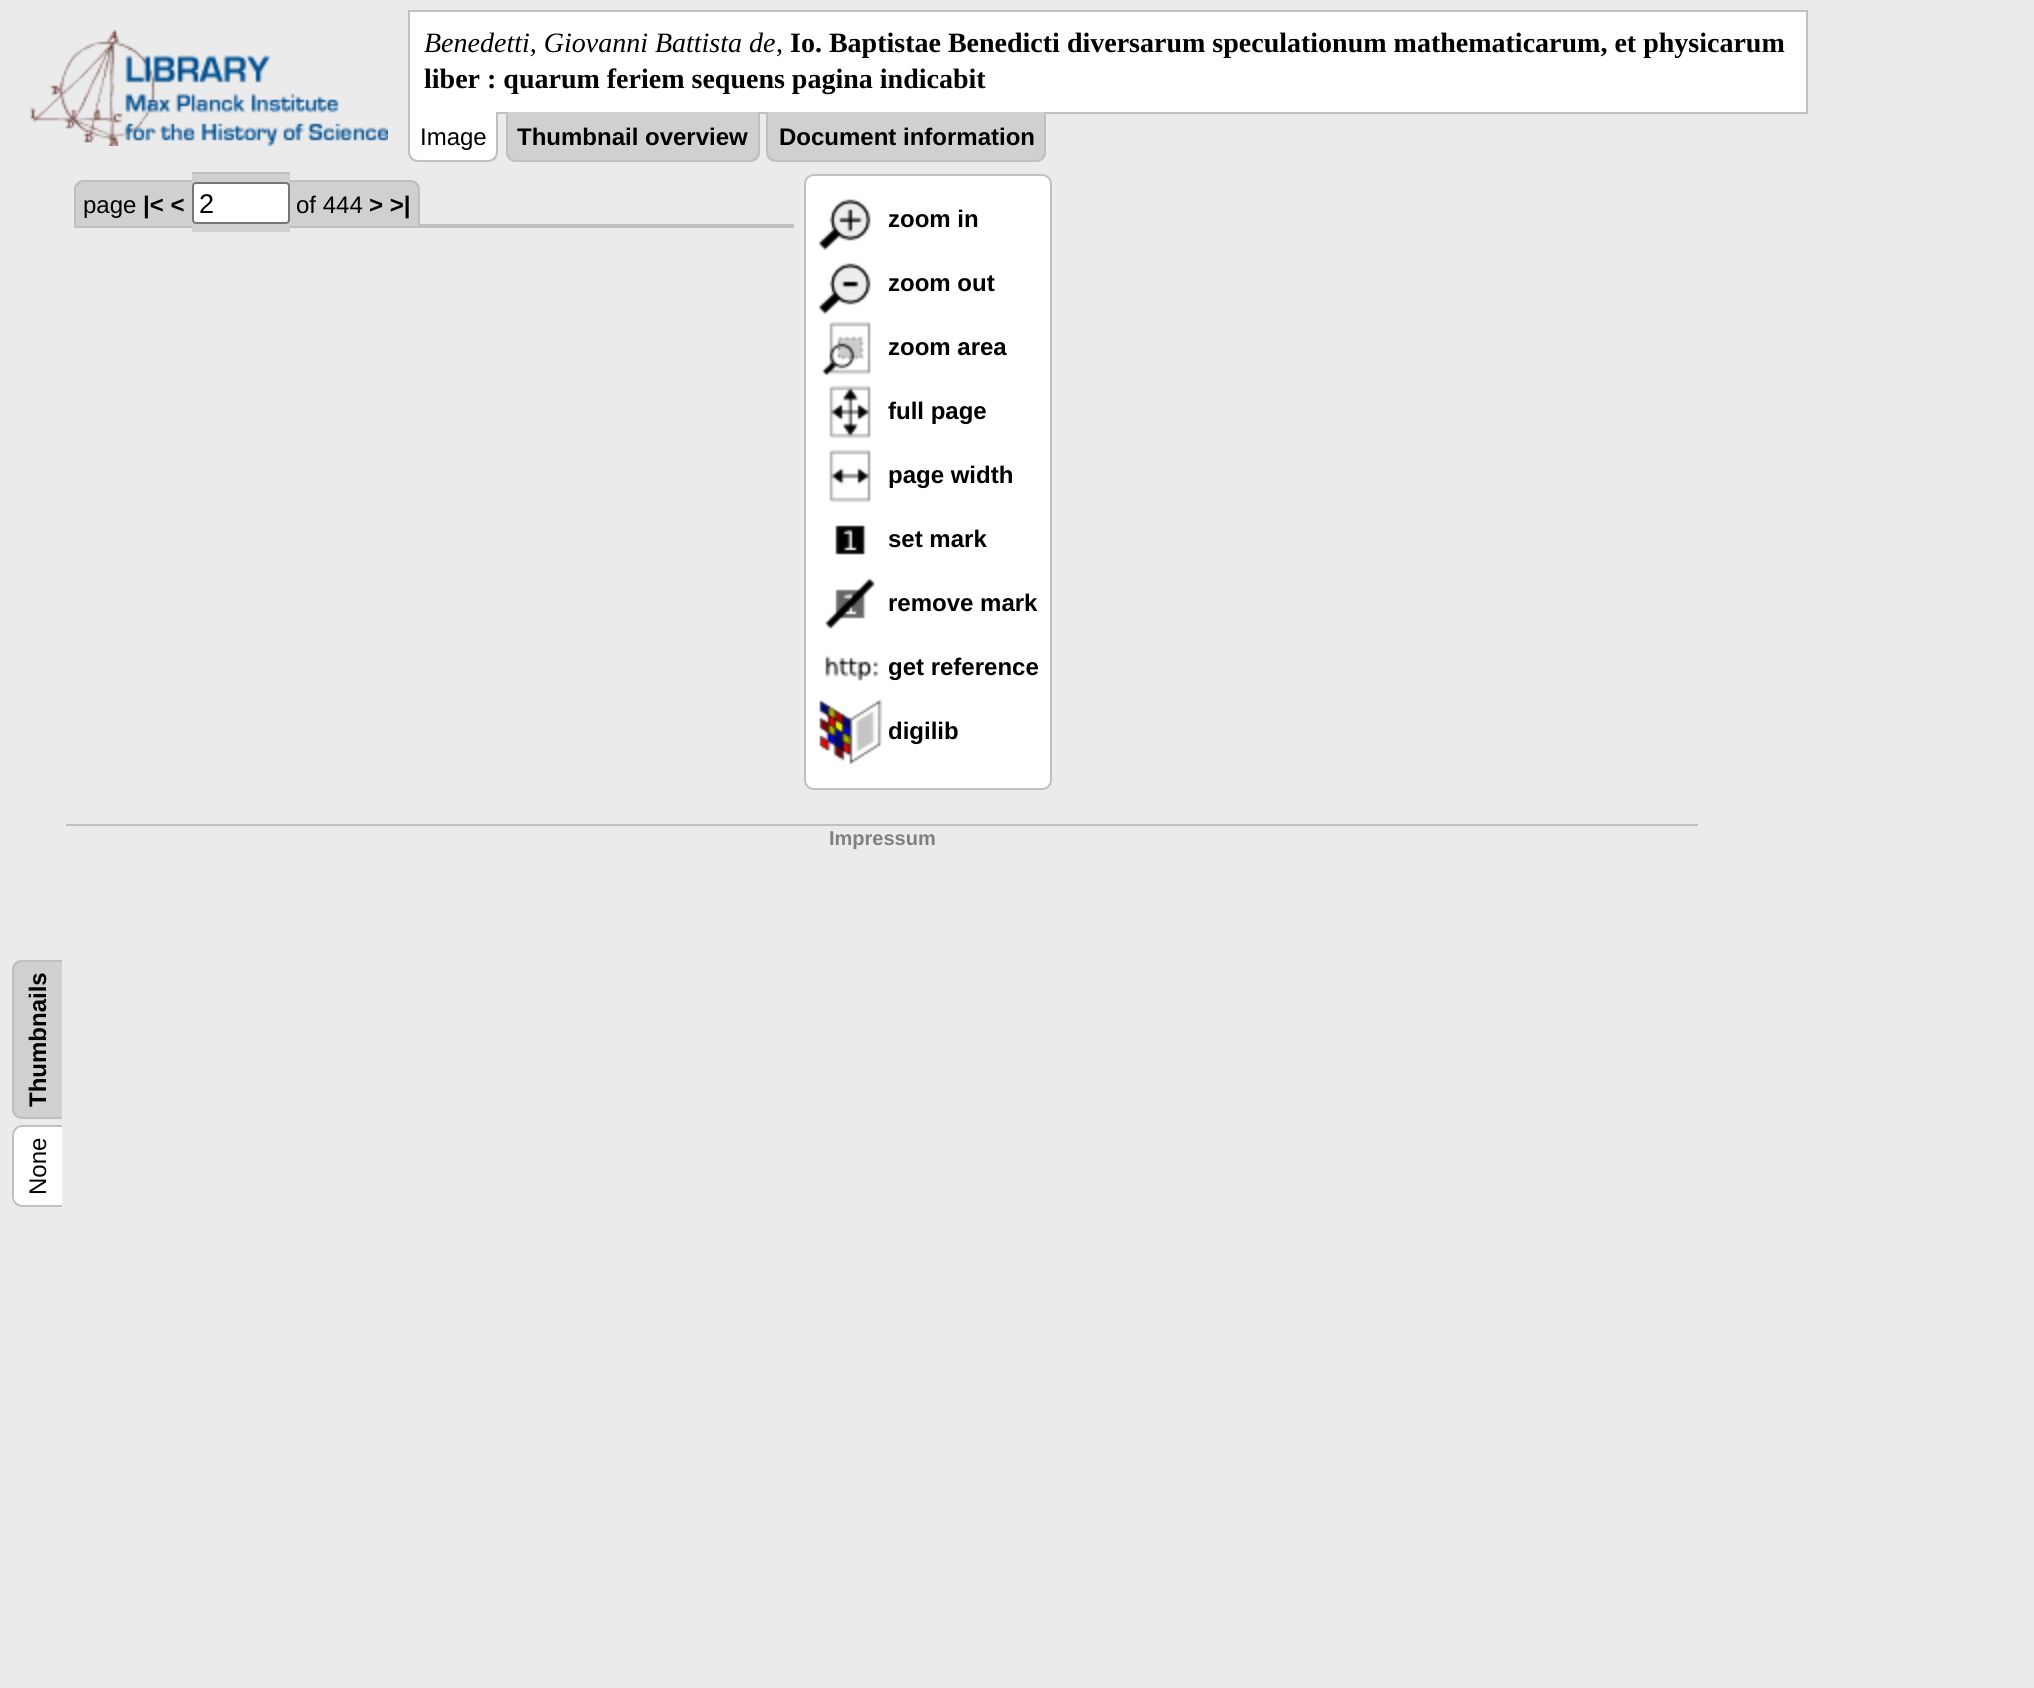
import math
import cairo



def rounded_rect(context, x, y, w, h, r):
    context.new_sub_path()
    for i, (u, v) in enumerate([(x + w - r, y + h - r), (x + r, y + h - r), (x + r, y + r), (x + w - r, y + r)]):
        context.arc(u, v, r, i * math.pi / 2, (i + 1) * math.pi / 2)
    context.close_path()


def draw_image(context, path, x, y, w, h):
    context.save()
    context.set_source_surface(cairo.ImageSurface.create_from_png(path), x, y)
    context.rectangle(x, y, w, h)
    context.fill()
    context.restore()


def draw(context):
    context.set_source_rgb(235 / 255, 235 / 255, 235 / 255)
    context.paint()
    draw_image(context, "images/1.png", 30, 30, 358, 116)
    context.set_source_rgb(1, 1, 1)
    context.rectangle(409, 11, 1398, 102)
    context.fill_preserve()
    context.set_source_rgb(192 / 255, 192 / 255, 192 / 255)
    context.stroke()
    context.set_source_rgb(1, 1, 1)
    context.new_path()
    context.move_to(408, 112)
    context.line_to(498, 112)
    context.line_to(498, 152)
    context.curve_to(498, 157.5, 493.5, 162, 488, 162)
    context.line_to(418, 162)
    context.curve_to(412.5, 162, 408, 157.5, 408, 152)
    context.close_path()
    context.fill()
    context.set_source_rgb(192 / 255, 192 / 255, 192 / 255)
    context.set_fill_rule(cairo.FillRule.EVEN_ODD)
    context.new_path()
    context.move_to(408, 112)
    context.line_to(498, 112)
    context.line_to(498, 152)
    context.curve_to(498, 158, 494, 162, 488, 162)
    context.line_to(418, 162)
    context.curve_to(412, 162, 408, 158, 408, 152)
    context.close_path()
    context.move_to(410, 112)
    context.line_to(496, 112)
    context.line_to(496, 152)
    context.curve_to(496, 156, 492, 160, 488, 160)
    context.line_to(418, 160)
    context.curve_to(414, 160, 410, 156, 410, 152)
    context.close_path()
    context.fill()
    context.set_source_rgb(208 / 255, 208 / 255, 208 / 255)
    context.new_path()
    context.move_to(506, 112)
    context.line_to(760, 112)
    context.line_to(760, 152)
    context.curve_to(760, 157.5, 755.5, 162, 750, 162)
    context.line_to(516, 162)
    context.curve_to(510.5, 162, 506, 157.5, 506, 152)
    context.close_path()
    context.fill()
    context.set_source_rgb(192 / 255, 192 / 255, 192 / 255)
    context.new_path()
    context.move_to(506, 112)
    context.line_to(760, 112)
    context.line_to(760, 152)
    context.curve_to(760, 158, 756, 162, 750, 162)
    context.line_to(516, 162)
    context.curve_to(510, 162, 506, 158, 506, 152)
    context.close_path()
    context.move_to(508, 112)
    context.line_to(758, 112)
    context.line_to(758, 152)
    context.curve_to(758, 156, 754, 160, 750, 160)
    context.line_to(516, 160)
    context.curve_to(512, 160, 508, 156, 508, 152)
    context.close_path()
    context.fill()
    context.set_source_rgb(208 / 255, 208 / 255, 208 / 255)
    context.new_path()
    context.move_to(766, 112)
    context.line_to(1046, 112)
    context.line_to(1046, 152)
    context.curve_to(1046, 157.5, 1041.5, 162, 1036, 162)
    context.line_to(776, 162)
    context.curve_to(770.5, 162, 766, 157.5, 766, 152)
    context.close_path()
    context.fill()
    context.set_source_rgb(192 / 255, 192 / 255, 192 / 255)
    context.new_path()
    context.move_to(766, 112)
    context.line_to(1046, 112)
    context.line_to(1046, 152)
    context.curve_to(1046, 158, 1042, 162, 1036, 162)
    context.line_to(776, 162)
    context.curve_to(770, 162, 766, 158, 766, 152)
    context.close_path()
    context.move_to(768, 112)
    context.line_to(1044, 112)
    context.line_to(1044, 152)
    context.curve_to(1044, 156, 1040, 160, 1036, 160)
    context.line_to(776, 160)
    context.curve_to(772, 160, 768, 156, 768, 152)
    context.close_path()
    context.fill()
    context.rectangle(74, 224, 720, 4)
    context.fill()
    context.set_source_rgb(208 / 255, 208 / 255, 208 / 255)
    context.new_path()
    context.move_to(84, 180)
    context.line_to(144, 180)
    context.line_to(144, 226)
    context.line_to(74, 226)
    context.line_to(74, 190)
    context.curve_to(74, 184.5, 78.5, 180, 84, 180)
    context.close_path()
    context.fill()
    context.set_source_rgb(192 / 255, 192 / 255, 192 / 255)
    context.new_path()
    context.move_to(84, 180)
    context.line_to(144, 180)
    context.line_to(144, 226)
    context.line_to(74, 226)
    context.line_to(74, 190)
    context.curve_to(74, 184, 78, 180, 84, 180)
    context.close_path()
    context.move_to(84, 182)
    context.line_to(144, 182)
    context.line_to(144, 226)
    context.line_to(76, 226)
    context.line_to(76, 190)
    context.curve_to(76, 186, 80, 182, 84, 182)
    context.close_path()
    context.fill()
    context.set_source_rgb(208 / 255, 208 / 255, 208 / 255)
    context.rectangle(144, 182, 20, 44)
    context.fill()
    context.set_source_rgb(192 / 255, 192 / 255, 192 / 255)
    context.rectangle(144, 180, 20, 2)
    context.fill()
    context.set_source_rgb(208 / 255, 208 / 255, 208 / 255)
    context.rectangle(164, 180, 6, 46)
    context.fill()
    context.set_source_rgb(192 / 255, 192 / 255, 192 / 255)
    context.rectangle(164, 180, 20, 2)
    context.fill()
    context.set_source_rgb(208 / 255, 208 / 255, 208 / 255)
    context.rectangle(170, 182, 14, 44)
    context.fill()
    context.rectangle(184, 180, 8, 46)
    context.fill()
    context.set_source_rgb(192 / 255, 192 / 255, 192 / 255)
    context.rectangle(184, 180, 8, 2)
    context.fill()
    context.set_source_rgb(208 / 255, 208 / 255, 208 / 255)
    context.rectangle(192, 174, 98, 58)
    context.fill()
    context.set_source_rgb(192 / 255, 192 / 255, 192 / 255)
    context.rectangle(192, 172, 98, 2)
    context.fill()
    context.set_source_rgb(208 / 255, 208 / 255, 208 / 255)
    context.rectangle(290, 180, 6, 46)
    context.fill()
    context.set_source_rgb(192 / 255, 192 / 255, 192 / 255)
    context.rectangle(290, 180, 94, 2)
    context.fill()
    context.set_source_rgb(208 / 255, 208 / 255, 208 / 255)
    context.rectangle(296, 182, 88, 44)
    context.fill()
    context.rectangle(384, 180, 6, 46)
    context.fill()
    context.set_source_rgb(192 / 255, 192 / 255, 192 / 255)
    context.rectangle(384, 180, 6, 2)
    context.fill()
    context.set_source_rgb(208 / 255, 208 / 255, 208 / 255)
    context.new_path()
    context.move_to(390, 180)
    context.line_to(410, 180)
    context.curve_to(415.5, 180, 420, 184.5, 420, 190)
    context.line_to(420, 226)
    context.line_to(390, 226)
    context.close_path()
    context.fill()
    context.set_source_rgb(192 / 255, 192 / 255, 192 / 255)
    context.new_path()
    context.move_to(390, 180)
    context.line_to(410, 180)
    context.curve_to(416, 180, 420, 184, 420, 190)
    context.line_to(420, 226)
    context.line_to(390, 226)
    context.close_path()
    context.move_to(390, 182)
    context.line_to(410, 182)
    context.curve_to(414, 182, 418, 186, 418, 190)
    context.line_to(418, 226)
    context.line_to(390, 226)
    context.close_path()
    context.fill()
    context.set_source_rgb(1, 1, 1)
    rounded_rect(context, 193, 183, 96, 40, 3)
    context.fill_preserve()
    context.set_source_rgb(118 / 255, 118 / 255, 118 / 255)
    context.stroke()
    context.set_source_rgb(1, 1, 1)
    rounded_rect(context, 805, 175, 246, 614, 9)
    context.fill_preserve()
    context.set_source_rgb(192 / 255, 192 / 255, 192 / 255)
    context.stroke()
    draw_image(context, "images/2.png", 818, 199, 53, 52)
    draw_image(context, "images/3.png", 818, 263, 53, 52)
    draw_image(context, "images/4.png", 821, 321, 50, 56)
    draw_image(context, "images/5.png", 829, 385, 42, 54)
    draw_image(context, "images/6.png", 829, 449, 42, 54)
    draw_image(context, "images/7.png", 835, 525, 32, 30)
    draw_image(context, "images/8.png", 825, 577, 50, 52)
    draw_image(context, "images/9.png", 825, 655, 54, 26)
    draw_image(context, "images/10.png", 819, 700, 63, 64)
    context.set_source_rgb(208 / 255, 208 / 255, 208 / 255)
    context.set_fill_rule(cairo.FillRule.WINDING)
    context.new_path()
    context.move_to(12, 1109)
    context.line_to(12, 970)
    context.curve_to(12, 964, 16, 960, 22, 960)
    context.line_to(62, 960)
    context.line_to(62, 1119)
    context.line_to(22, 1119)
    context.curve_to(16, 1119, 12, 1114, 12, 1109)
    context.close_path()
    context.fill()
    context.set_source_rgb(192 / 255, 192 / 255, 192 / 255)
    context.set_fill_rule(cairo.FillRule.EVEN_ODD)
    context.new_path()
    context.move_to(12, 1109)
    context.line_to(12, 970)
    context.curve_to(12, 964, 16, 960, 22, 960)
    context.line_to(62, 960)
    context.line_to(62, 1119)
    context.line_to(22, 1119)
    context.curve_to(16, 1119, 12, 1114, 12, 1109)
    context.close_path()
    context.move_to(14, 1109)
    context.line_to(14, 970)
    context.curve_to(14, 966, 18, 962, 22, 962)
    context.line_to(62, 962)
    context.line_to(62, 1117)
    context.line_to(22, 1117)
    context.curve_to(18, 1117, 14, 1113, 14, 1109)
    context.close_path()
    context.fill()
    context.set_source_rgb(1, 1, 1)
    context.set_fill_rule(cairo.FillRule.WINDING)
    context.new_path()
    context.move_to(12, 1197)
    context.line_to(12, 1135)
    context.curve_to(12, 1130, 16, 1125, 22, 1125)
    context.line_to(62, 1125)
    context.line_to(62, 1207)
    context.line_to(22, 1207)
    context.curve_to(16, 1207, 12, 1202, 12, 1197)
    context.close_path()
    context.fill()
    context.set_source_rgb(192 / 255, 192 / 255, 192 / 255)
    context.set_fill_rule(cairo.FillRule.EVEN_ODD)
    context.new_path()
    context.move_to(12, 1197)
    context.line_to(12, 1135)
    context.curve_to(12, 1130, 16, 1125, 22, 1125)
    context.line_to(62, 1125)
    context.line_to(62, 1207)
    context.line_to(22, 1207)
    context.curve_to(16, 1207, 12, 1202, 12, 1197)
    context.close_path()
    context.move_to(14, 1197)
    context.line_to(14, 1135)
    context.curve_to(14, 1131, 18, 1127, 22, 1127)
    context.line_to(62, 1127)
    context.line_to(62, 1205)
    context.line_to(22, 1205)
    context.curve_to(18, 1205, 14, 1201, 14, 1197)
    context.close_path()
    context.fill()
    context.rectangle(66, 824, 1632, 2)
    context.fill()
    context.select_font_face("Liberation Serif", cairo.FontSlant.ITALIC)
    context.set_font_size(28)
    context.set_source_rgb(0, 0, 0)
    context.move_to(424, 52)
    context.show_text("Benedetti, Giovanni Battista de")
    context.select_font_face("Liberation Serif")
    context.move_to(776, 52)
    context.show_text(",")
    context.select_font_face("Liberation Serif", cairo.FontSlant.NORMAL, cairo.FontWeight.BOLD)
    context.move_to(790, 52)
    context.show_text("Io. Baptistae Benedicti diversarum speculationum mathematicarum, et physicarum")
    context.move_to(424, 88)
    context.show_text("liber : quarum feriem sequens pagina indicabit")
    context.select_font_face("Liberation Sans")
    context.set_font_size(24)
    context.move_to(420, 145)
    context.show_text("Image")
    context.select_font_face("Liberation Sans", cairo.FontSlant.NORMAL, cairo.FontWeight.BOLD)
    context.move_to(517, 145)
    context.show_text("Thumbnail overview")
    context.move_to(779, 145)
    context.show_text("Document information")
    context.select_font_face("Liberation Sans")
    context.move_to(83, 213)
    context.show_text("page")
    context.select_font_face("Liberation Sans", cairo.FontSlant.NORMAL, cairo.FontWeight.BOLD)
    context.move_to(143, 213)
    context.show_text("|< <")
    context.select_font_face("Liberation Sans")
    context.set_font_size(27)
    context.move_to(199, 213)
    context.show_text("2")
    context.set_font_size(24)
    context.move_to(296, 213)
    context.show_text("of 444")
    context.select_font_face("Liberation Sans", cairo.FontSlant.NORMAL, cairo.FontWeight.BOLD)
    context.move_to(369, 213)
    context.show_text("> >|")
    context.move_to(888, 227)
    context.show_text("zoom in")
    context.move_to(888, 291)
    context.show_text("zoom out")
    context.move_to(888, 355)
    context.show_text("zoom area")
    context.move_to(888, 419)
    context.show_text("full page")
    context.move_to(888, 483)
    context.show_text("page width")
    context.move_to(888, 547)
    context.show_text("set mark")
    context.move_to(888, 611)
    context.show_text("remove mark")
    context.move_to(888, 675)
    context.show_text("get reference")
    context.move_to(888, 739)
    context.show_text("digilib")
    context.save()
    context.translate(46, 1107)
    context.rotate(-90 * math.pi / 180)
    context.move_to(0, 0)
    context.show_text("Thumbnails")
    context.restore()
    context.select_font_face("Liberation Sans")
    context.save()
    context.translate(46, 1195)
    context.rotate(-90 * math.pi / 180)
    context.move_to(0, 0)
    context.show_text("None")
    context.restore()
    context.select_font_face("Liberation Sans", cairo.FontSlant.NORMAL, cairo.FontWeight.BOLD)
    context.set_font_size(20)
    context.set_source_rgb(128 / 255, 128 / 255, 128 / 255)
    context.move_to(829, 845)
    context.show_text("Impressum")


surface = cairo.ImageSurface(cairo.Format.RGB24, 2034, 1688)
context = cairo.Context(surface)
options = cairo.FontOptions()
options.set_hint_metrics(cairo.HintMetrics.OFF)
options.set_hint_style(cairo.HintStyle.NONE)
context.set_font_options(options)
context.set_miter_limit(4)
draw(context)
surface.write_to_png("out.png")
